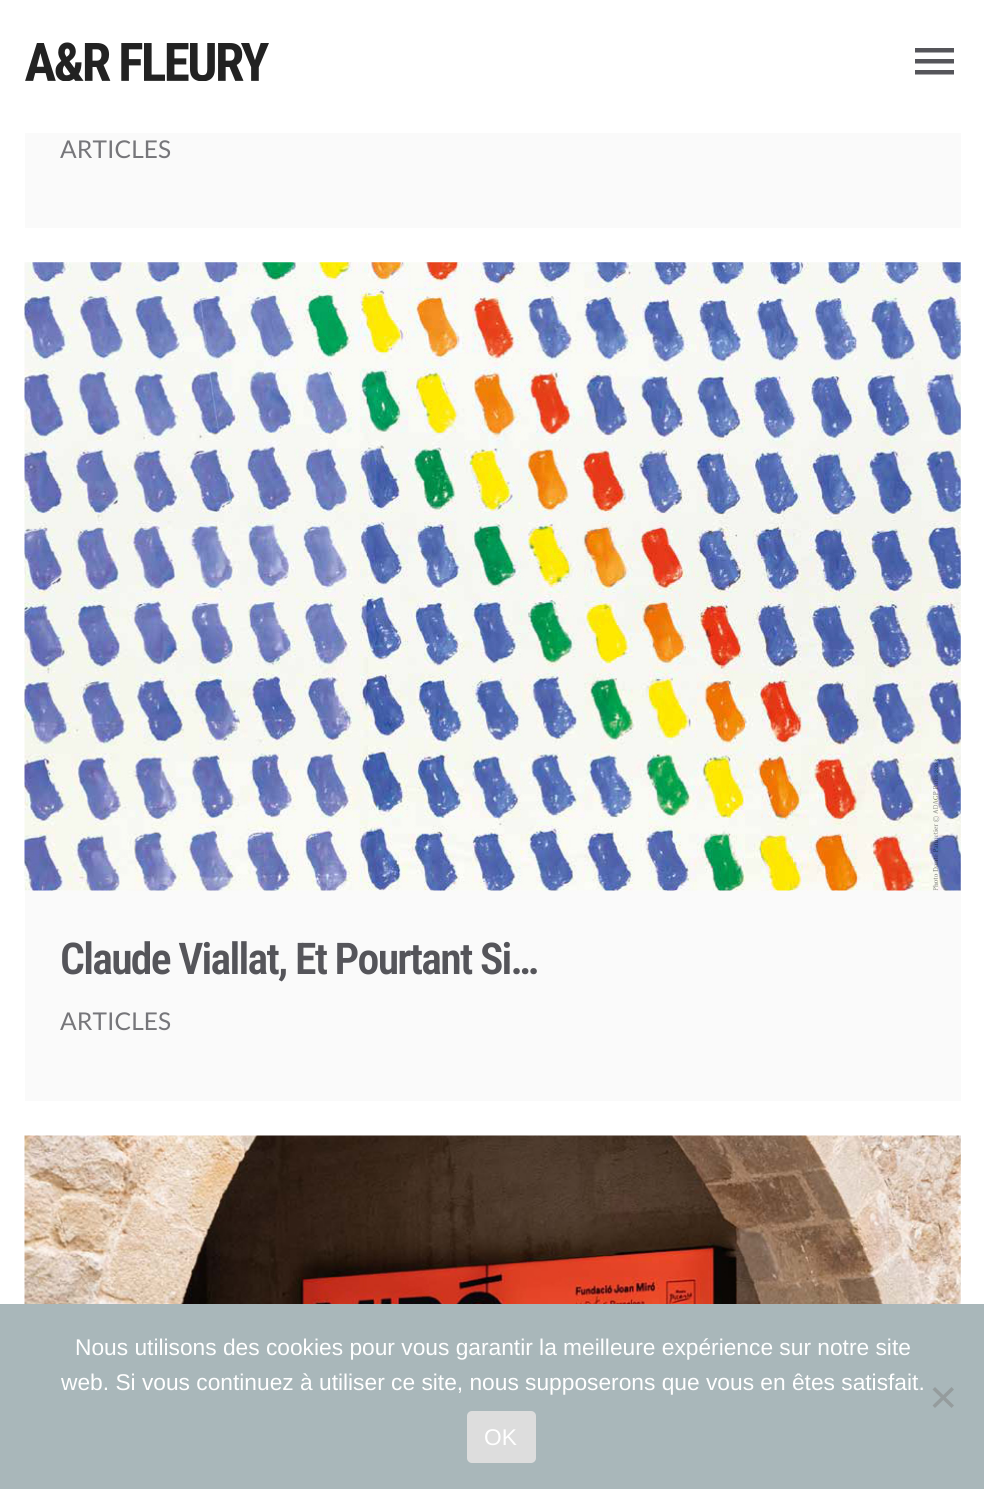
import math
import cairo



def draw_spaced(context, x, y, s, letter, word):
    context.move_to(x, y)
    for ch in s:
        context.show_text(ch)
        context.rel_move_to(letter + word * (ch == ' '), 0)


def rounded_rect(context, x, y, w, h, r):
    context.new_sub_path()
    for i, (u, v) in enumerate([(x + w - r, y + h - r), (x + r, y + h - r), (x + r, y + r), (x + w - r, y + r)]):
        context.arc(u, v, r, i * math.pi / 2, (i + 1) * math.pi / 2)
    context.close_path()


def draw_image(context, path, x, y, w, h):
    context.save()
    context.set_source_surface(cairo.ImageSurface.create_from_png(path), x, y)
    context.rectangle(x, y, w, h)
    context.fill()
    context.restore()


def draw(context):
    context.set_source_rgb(1, 1, 1)
    context.paint()
    draw_image(context, "images/1.png", 25, 42, 244, 39)
    context.set_source_rgb(85 / 255, 85 / 255, 90 / 255)
    context.new_path()
    context.move_to(915, 48)
    context.line_to(954, 48)
    context.line_to(954, 52.5)
    context.line_to(915, 52.5)
    context.close_path()
    context.move_to(915, 63.5)
    context.line_to(915, 59)
    context.line_to(954, 59)
    context.line_to(954, 63.5)
    context.close_path()
    context.move_to(915, 74.5)
    context.line_to(915, 70)
    context.line_to(954, 70)
    context.line_to(954, 74.5)
    context.close_path()
    context.fill()
    context.set_source_rgb(250 / 255, 250 / 255, 250 / 255)
    context.rectangle(25, 133, 936, 95)
    context.fill()
    context.rectangle(25, 263, 936, 838)
    context.fill()
    draw_image(context, "images/2.png", 24, 262, 937, 629)
    draw_image(context, "images/3.png", 24, 1135, 937, 169)
    context.set_source_rgb(169 / 255, 183 / 255, 186 / 255)
    context.rectangle(0, 1304, 984, 185)
    context.fill()
    context.set_source_rgb(149 / 255, 156 / 255, 157 / 255)
    context.new_path()
    context.move_to(951.5, 1387)
    context.line_to(954, 1389.5)
    context.line_to(935, 1408)
    context.line_to(932.5, 1405.5)
    context.close_path()
    context.fill()
    context.new_path()
    context.move_to(932.5, 1389.5)
    context.line_to(935, 1387)
    context.line_to(954, 1405.5)
    context.line_to(951.5, 1408)
    context.close_path()
    context.fill()
    context.set_source_rgb(221 / 255, 221 / 255, 221 / 255)
    rounded_rect(context, 467, 1411, 69, 52, 5)
    context.fill()
    context.select_font_face("Lato")
    context.set_font_size(24.5)
    context.set_source_rgb(118 / 255, 118 / 255, 122 / 255)
    context.move_to(60, 158)
    context.show_text("ARTICLES")
    context.select_font_face("Roboto Condensed SemiBold")
    context.set_font_size(43.75)
    context.set_source_rgb(85 / 255, 85 / 255, 90 / 255)
    draw_spaced(context, 60, 974, "Claude Viallat, Et Pourtant Si…", -1.75, 0)
    context.select_font_face("Lato")
    context.set_font_size(24.5)
    context.set_source_rgb(118 / 255, 118 / 255, 122 / 255)
    context.move_to(60, 1030)
    context.show_text("ARTICLES")
    context.select_font_face("Liberation Sans")
    context.set_font_size(22.75)
    context.set_source_rgb(1, 1, 1)
    context.move_to(75, 1355)
    context.show_text("Nous utilisons des cookies pour vous garantir la meilleure expérience sur notre site")
    context.move_to(61, 1390)
    context.show_text("web. Si vous continuez à utiliser ce site, nous supposerons que vous en êtes satisfait.")
    context.move_to(484, 1445)
    context.show_text("OK")


surface = cairo.ImageSurface(cairo.Format.RGB24, 984, 1489)
context = cairo.Context(surface)
options = cairo.FontOptions()
options.set_hint_metrics(cairo.HintMetrics.OFF)
options.set_hint_style(cairo.HintStyle.NONE)
context.set_font_options(options)
context.set_miter_limit(4)
draw(context)
surface.write_to_png("out.png")
